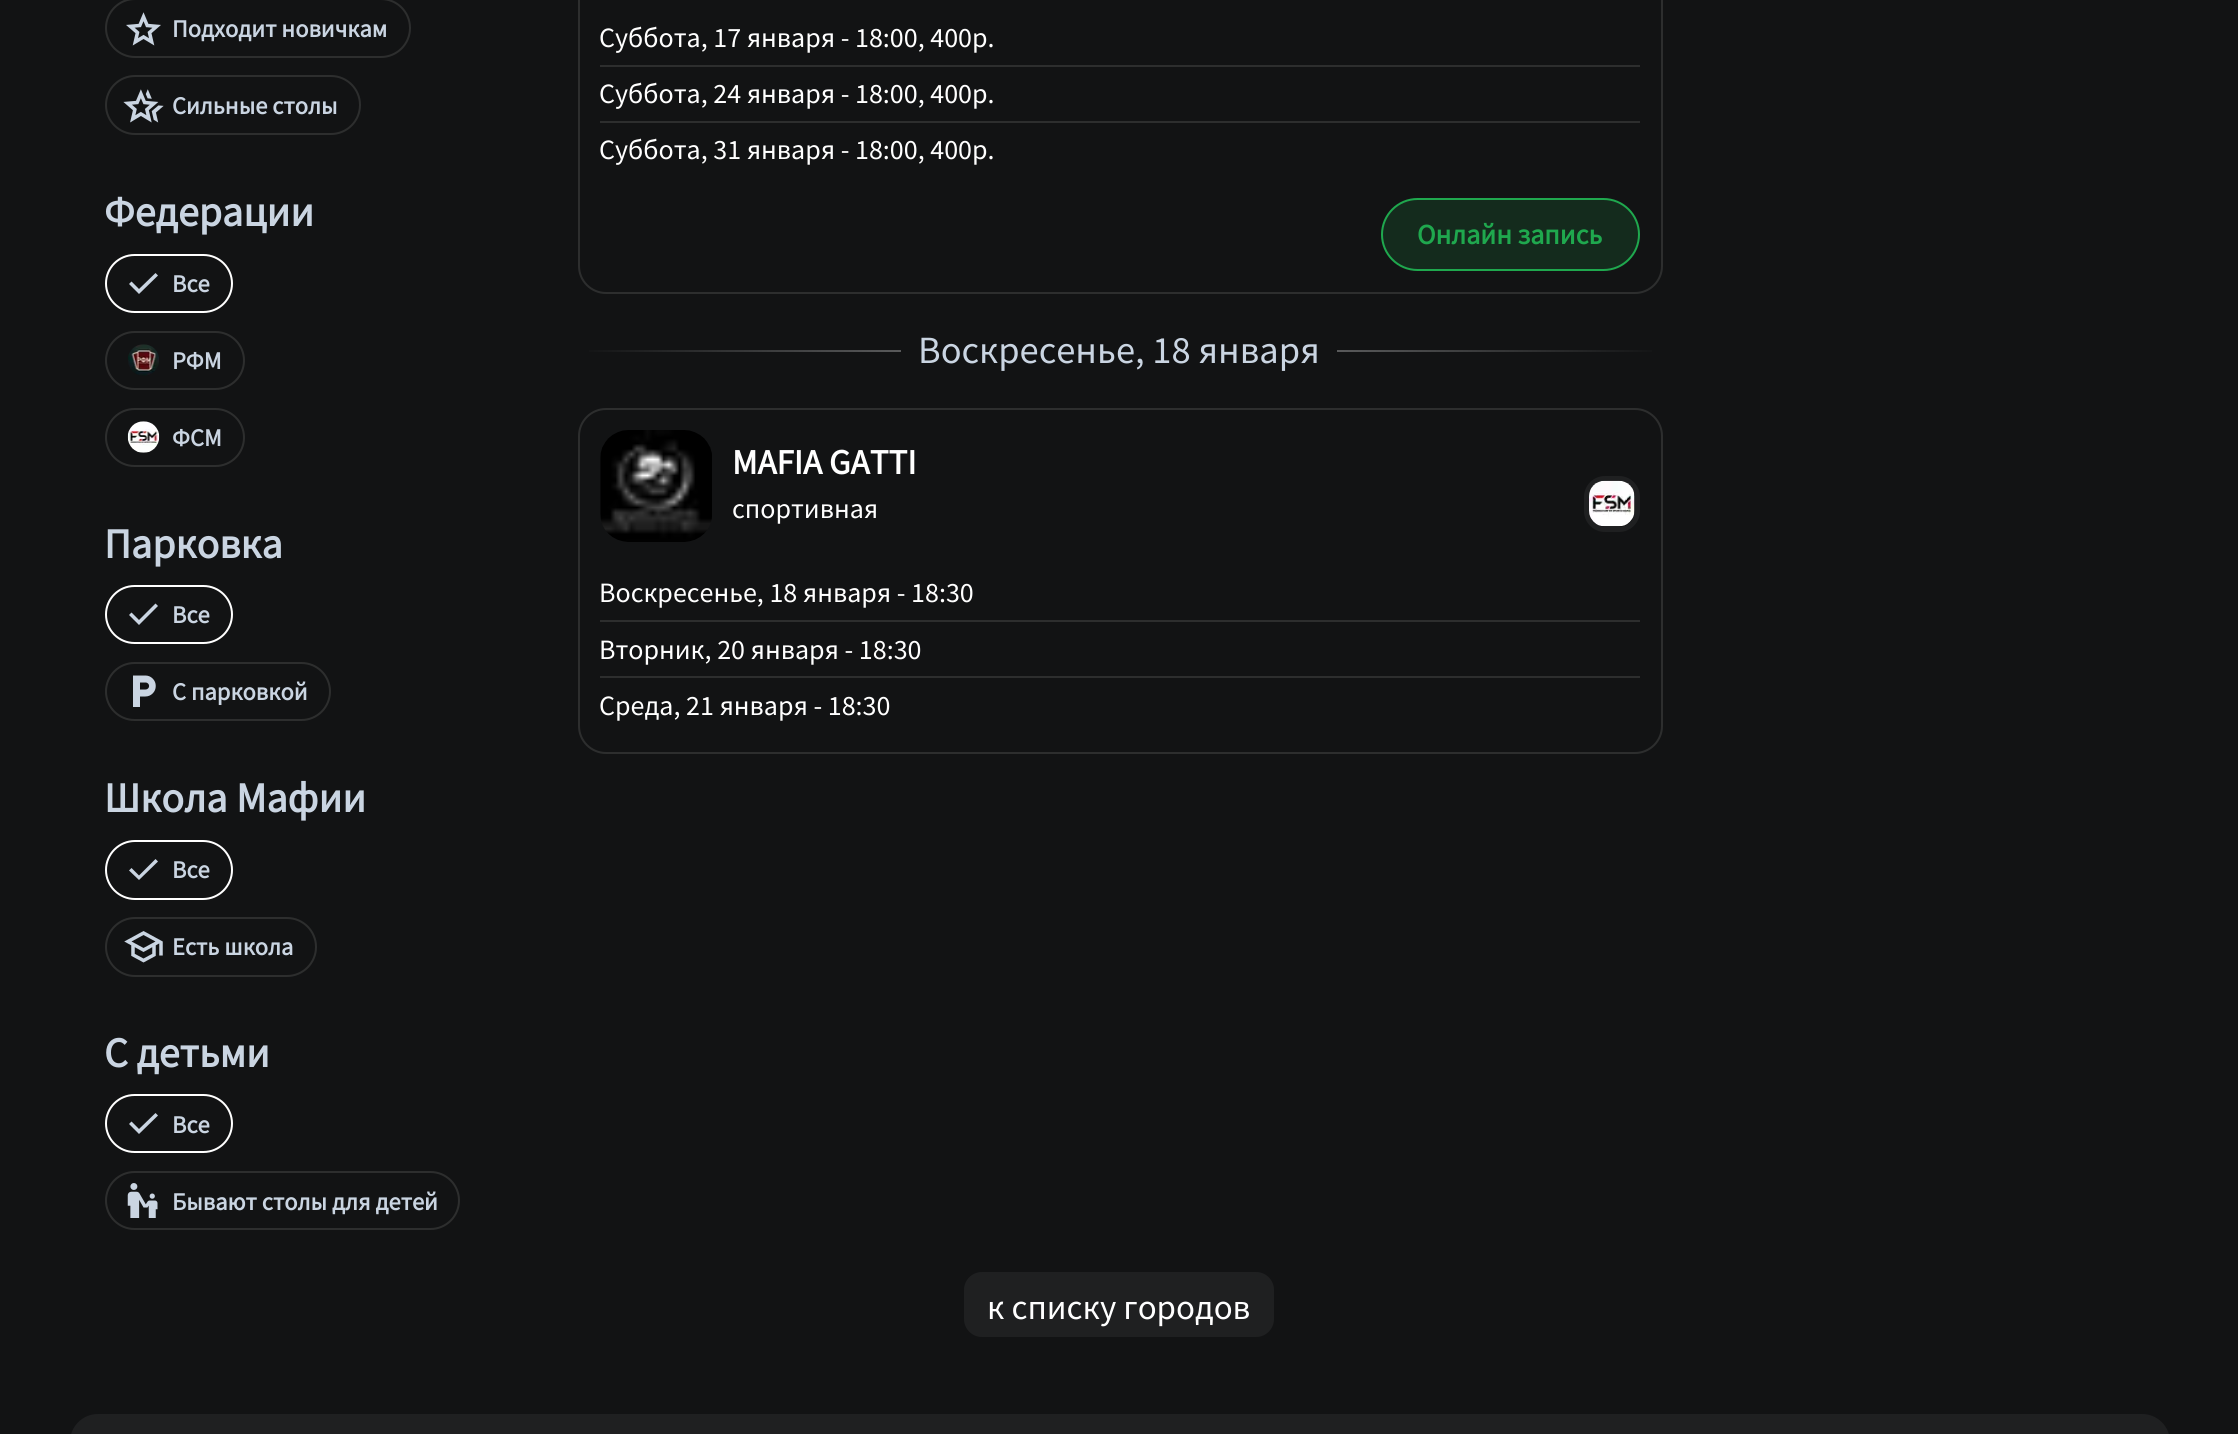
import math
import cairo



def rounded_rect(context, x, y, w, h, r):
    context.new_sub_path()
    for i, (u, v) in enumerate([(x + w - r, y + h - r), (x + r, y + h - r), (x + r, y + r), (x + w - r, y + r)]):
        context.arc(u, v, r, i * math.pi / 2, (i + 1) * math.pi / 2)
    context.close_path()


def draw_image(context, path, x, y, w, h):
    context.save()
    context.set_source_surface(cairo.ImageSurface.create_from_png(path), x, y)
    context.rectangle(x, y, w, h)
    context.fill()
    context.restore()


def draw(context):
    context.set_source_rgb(18 / 255, 19 / 255, 20 / 255)
    context.paint()
    rounded_rect(context, 106, -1, 304, 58, 29)
    context.set_source_rgb(45 / 255, 46 / 255, 46 / 255)
    context.stroke()
    draw_image(context, "images/1.png", 126, 12, 35, 34)
    rounded_rect(context, 106, 76, 254, 58, 29)
    context.stroke()
    draw_image(context, "images/2.png", 123, 89, 41, 34)
    rounded_rect(context, 106, 255, 126, 57, 28.5)
    context.set_source_rgb(1, 1, 1)
    context.stroke()
    context.set_source_rgb(202 / 255, 213 / 255, 226 / 255)
    context.new_path()
    context.move_to(139, 294)
    context.line_to(129, 284)
    context.line_to(131.5, 281.5)
    context.line_to(139, 289)
    context.line_to(155.5, 273)
    context.line_to(158, 275.5)
    context.close_path()
    context.fill()
    rounded_rect(context, 106, 332, 138, 57, 28.5)
    context.set_source_rgb(45 / 255, 46 / 255, 46 / 255)
    context.stroke()
    draw_image(context, "images/3.png", 128, 344, 31, 32)
    rounded_rect(context, 106, 409, 138, 57, 28.5)
    context.stroke()
    draw_image(context, "images/4.png", 127, 421, 33, 32)
    rounded_rect(context, 106, 586, 126, 57, 28.5)
    context.set_source_rgb(1, 1, 1)
    context.stroke()
    context.set_source_rgb(202 / 255, 213 / 255, 226 / 255)
    context.new_path()
    context.move_to(139, 625)
    context.line_to(129, 615)
    context.line_to(131.5, 612.5)
    context.line_to(139, 620)
    context.line_to(155.5, 603.5)
    context.line_to(158, 606)
    context.close_path()
    context.fill()
    rounded_rect(context, 106, 663, 224, 57, 28.5)
    context.set_source_rgb(45 / 255, 46 / 255, 46 / 255)
    context.stroke()
    draw_image(context, "images/5.png", 133, 675, 23, 32)
    rounded_rect(context, 106, 841, 126, 58, 29)
    context.set_source_rgb(1, 1, 1)
    context.stroke()
    context.set_source_rgb(202 / 255, 213 / 255, 226 / 255)
    context.new_path()
    context.move_to(139, 880)
    context.line_to(129, 870.5)
    context.line_to(131.5, 868)
    context.line_to(139, 875.5)
    context.line_to(155.5, 859)
    context.line_to(158, 861.5)
    context.close_path()
    context.fill()
    rounded_rect(context, 106, 918, 210, 58, 29)
    context.set_source_rgb(45 / 255, 46 / 255, 46 / 255)
    context.stroke()
    draw_image(context, "images/6.png", 124, 931, 39, 32)
    rounded_rect(context, 106, 1095, 126, 57, 28.5)
    context.set_source_rgb(1, 1, 1)
    context.stroke()
    context.set_source_rgb(202 / 255, 213 / 255, 226 / 255)
    context.new_path()
    context.move_to(139, 1134)
    context.line_to(129, 1124)
    context.line_to(131.5, 1121.5)
    context.line_to(139, 1129)
    context.line_to(155.5, 1113)
    context.line_to(158, 1115.5)
    context.close_path()
    context.fill()
    rounded_rect(context, 106, 1172, 353, 57, 28.5)
    context.set_source_rgb(45 / 255, 46 / 255, 46 / 255)
    context.stroke()
    draw_image(context, "images/7.png", 127, 1183, 31, 35)
    rounded_rect(context, 579, -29, 1083, 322, 27)
    context.stroke()
    context.rectangle(600, 65, 1040, 2)
    context.fill()
    context.rectangle(600, 121, 1040, 2)
    context.fill()
    context.set_source_rgb(20 / 255, 43 / 255, 29 / 255)
    rounded_rect(context, 1382, 199, 257, 71, 35.5)
    context.fill_preserve()
    context.set_source_rgb(31 / 255, 168 / 255, 78 / 255)
    context.stroke()
    gradient = cairo.LinearGradient(578, 351, 901, 351)
    gradient.add_color_stop_rgba(0, 18 / 255, 19 / 255, 20 / 255, 1)
    gradient.add_color_stop_rgba(1, 89 / 255, 90 / 255, 91 / 255, 1)
    context.set_source(gradient)
    context.rectangle(589, 350, 312, 2)
    context.fill()
    gradient = cairo.LinearGradient(1663, 351, 1337, 351)
    gradient.add_color_stop_rgba(0, 18 / 255, 19 / 255, 20 / 255, 1)
    gradient.add_color_stop_rgba(1, 89 / 255, 90 / 255, 91 / 255, 1)
    context.set_source(gradient)
    context.rectangle(1337, 350, 315, 2)
    context.fill()
    rounded_rect(context, 579, 409, 1083, 344, 27)
    context.set_source_rgb(45 / 255, 46 / 255, 46 / 255)
    context.stroke()
    draw_image(context, "images/8.png", 600, 430, 112, 112)
    rounded_rect(context, 1586.5, 478.5, 51, 51, 18.5)
    context.set_source_rgb(31 / 255, 32 / 255, 33 / 255)
    context.set_line_width(5)
    context.stroke()
    draw_image(context, "images/9.png", 1589, 480, 46, 47)
    context.set_source_rgb(45 / 255, 46 / 255, 46 / 255)
    context.rectangle(600, 620, 1040, 2)
    context.fill()
    context.rectangle(600, 676, 1040, 2)
    context.fill()
    context.set_source_rgb(31 / 255, 32 / 255, 33 / 255)
    rounded_rect(context, 964, 1272, 310, 65, 18)
    context.fill()
    rounded_rect(context, 70, 1414, 2100, 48, 28)
    context.fill()
    context.select_font_face("Source Sans Pro", cairo.FontSlant.NORMAL, cairo.FontWeight.BOLD)
    context.set_font_size(24.5)
    context.set_source_rgb(202 / 255, 213 / 255, 226 / 255)
    context.move_to(172, 37)
    context.show_text("Подходит новичкам")
    context.move_to(172, 114)
    context.show_text("Сильные столы")
    context.set_font_size(42)
    context.move_to(104, 226)
    context.show_text("Федерации")
    context.set_font_size(24.5)
    context.move_to(172, 292)
    context.show_text("Все")
    context.move_to(172, 369)
    context.show_text("РФМ")
    context.move_to(172, 446)
    context.show_text("ФСМ")
    context.set_font_size(42)
    context.move_to(104, 558)
    context.show_text("Парковка")
    context.set_font_size(24.5)
    context.move_to(172, 623)
    context.show_text("Все")
    context.move_to(172, 700)
    context.show_text("С парковкой")
    context.set_font_size(42)
    context.move_to(104, 812)
    context.show_text("Школа Мафии")
    context.set_font_size(24.5)
    context.move_to(172, 878)
    context.show_text("Все")
    context.move_to(172, 955)
    context.show_text("Есть школа")
    context.set_font_size(42)
    context.move_to(104, 1067)
    context.show_text("С детьми")
    context.set_font_size(24.5)
    context.move_to(172, 1133)
    context.show_text("Все")
    context.move_to(172, 1210)
    context.show_text("Бывают столы для детей")
    context.select_font_face("Source Sans Pro")
    context.set_font_size(28)
    context.set_source_rgb(1, 1, 1)
    context.move_to(599, 47)
    context.show_text("Суббота, 17 января - 18:00, 400р.")
    context.move_to(599, 103)
    context.show_text("Суббота, 24 января - 18:00, 400р.")
    context.move_to(599, 159)
    context.show_text("Суббота, 31 января - 18:00, 400р.")
    context.select_font_face("Source Sans Pro", cairo.FontSlant.NORMAL, cairo.FontWeight.BOLD)
    context.set_source_rgb(31 / 255, 168 / 255, 78 / 255)
    context.move_to(1417, 244)
    context.show_text("Онлайн запись")
    context.select_font_face("Source Sans Pro")
    context.set_font_size(38.5)
    context.set_source_rgb(202 / 255, 213 / 255, 226 / 255)
    context.move_to(918, 363)
    context.show_text("Воскресенье, 18 января")
    context.select_font_face("Source Sans Pro", cairo.FontSlant.NORMAL, cairo.FontWeight.BOLD)
    context.set_font_size(35)
    context.set_source_rgb(1, 1, 1)
    context.move_to(732, 474)
    context.show_text("MAFIA GATTI")
    context.select_font_face("Source Sans Pro")
    context.set_font_size(28)
    context.move_to(732, 518)
    context.show_text("спортивная")
    context.move_to(599, 602)
    context.show_text("Воскресенье, 18 января - 18:30")
    context.move_to(599, 659)
    context.show_text("Вторник, 20 января - 18:30")
    context.move_to(599, 715)
    context.show_text("Среда, 21 января - 18:30")
    context.set_font_size(35)
    context.move_to(987, 1319)
    context.show_text("к списку городов")


surface = cairo.ImageSurface(cairo.Format.RGB24, 2238, 1434)
context = cairo.Context(surface)
options = cairo.FontOptions()
options.set_hint_metrics(cairo.HintMetrics.OFF)
options.set_hint_style(cairo.HintStyle.NONE)
context.set_font_options(options)
context.set_miter_limit(4)
draw(context)
surface.write_to_png("out.png")
